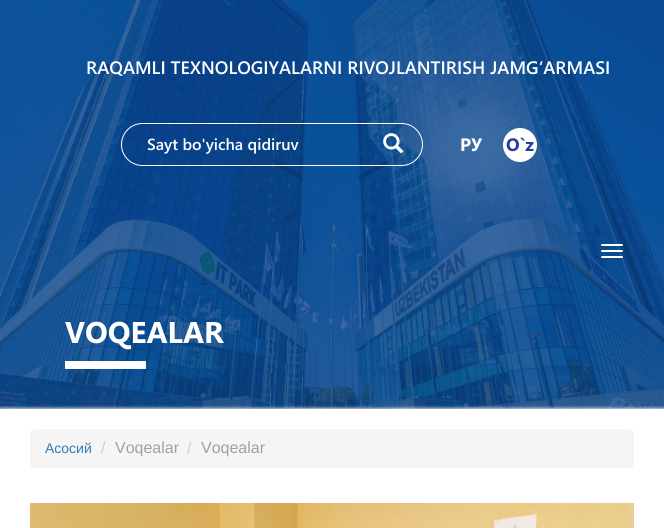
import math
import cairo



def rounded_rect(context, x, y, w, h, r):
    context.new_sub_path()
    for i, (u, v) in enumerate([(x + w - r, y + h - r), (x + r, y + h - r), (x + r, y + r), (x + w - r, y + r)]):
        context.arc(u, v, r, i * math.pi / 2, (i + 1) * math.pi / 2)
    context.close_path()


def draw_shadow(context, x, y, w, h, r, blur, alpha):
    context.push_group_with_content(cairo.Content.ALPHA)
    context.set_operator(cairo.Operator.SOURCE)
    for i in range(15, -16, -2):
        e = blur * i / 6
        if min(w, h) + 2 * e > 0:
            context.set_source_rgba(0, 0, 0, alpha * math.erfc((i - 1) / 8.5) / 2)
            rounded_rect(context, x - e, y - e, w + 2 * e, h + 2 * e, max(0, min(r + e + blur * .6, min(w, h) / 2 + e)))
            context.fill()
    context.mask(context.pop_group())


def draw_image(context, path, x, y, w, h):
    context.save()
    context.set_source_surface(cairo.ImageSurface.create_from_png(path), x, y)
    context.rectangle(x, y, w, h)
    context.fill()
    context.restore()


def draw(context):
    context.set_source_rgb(1, 1, 1)
    context.paint()
    draw_image(context, "images/1.png", 0, 0, 664, 409)
    context.set_source_rgba(0, 0, 0, 0.07)
    context.new_path()
    context.move_to(142, 125)
    context.line_to(402, 125)
    context.curve_to(413, 125, 422, 134, 422, 145)
    context.curve_to(423, 114, 372, 124, 358, 124)
    context.line_to(186, 124)
    context.curve_to(172, 124, 121, 114, 122, 145)
    context.curve_to(122, 134, 131, 125, 142, 125)
    context.close_path()
    context.fill()
    rounded_rect(context, 121.5, 123.5, 301, 42, 21)
    context.set_source_rgb(1, 1, 1)
    context.set_line_width(1)
    context.stroke()
    draw_image(context, "images/2.png", 383, 133, 21, 21)
    context.arc(520, 145, 17, 0, 2 * math.pi)
    context.fill()
    rounded_rect(context, 601, 244, 22, 2, 1)
    context.fill()
    rounded_rect(context, 601, 250, 22, 2, 1)
    context.fill()
    rounded_rect(context, 601, 256, 22, 2, 1)
    context.fill()
    context.rectangle(65, 361, 81, 8)
    context.fill()
    context.set_source_rgb(220 / 255, 220 / 255, 220 / 255)
    draw_shadow(context, -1, 408, 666, 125, 0, 1.5, 1)
    context.set_source_rgb(1, 1, 1)
    context.rectangle(0, 409, 664, 119)
    context.fill()
    context.set_source_rgb(245 / 255, 245 / 255, 245 / 255)
    rounded_rect(context, 30, 429, 604, 39, 4)
    context.fill()
    draw_image(context, "images/3.png", 30, 503, 604, 25)
    context.select_font_face("Segoe UI SemiBold")
    context.set_font_size(18)
    context.set_source_rgb(1, 1, 1)
    context.move_to(86, 74)
    context.show_text("RAQAMLI TEXNOLOGIYALARNI RIVOJLANTIRISH JAMG‘ARMASI")
    context.set_font_size(16)
    context.move_to(147, 150)
    context.show_text("Sayt bo'yicha qidiruv")
    context.select_font_face("Segoe UI", cairo.FontSlant.NORMAL, cairo.FontWeight.BOLD)
    context.set_font_size(18)
    context.move_to(460, 151)
    context.show_text("РУ")
    context.set_source_rgb(39 / 255, 62 / 255, 161 / 255)
    context.move_to(506, 151)
    context.show_text("O`z")
    context.set_font_size(30)
    context.set_source_rgb(1, 1, 1)
    context.move_to(65, 343)
    context.show_text("VOQEALAR")
    context.select_font_face("Liberation Sans")
    context.set_font_size(14)
    context.set_source_rgb(51 / 255, 122 / 255, 183 / 255)
    context.move_to(45, 453)
    context.show_text("Асосий")
    context.set_font_size(16)
    context.set_source_rgb(204 / 255, 204 / 255, 204 / 255)
    context.move_to(101, 453)
    context.show_text("/")
    context.set_source_rgb(160 / 255, 160 / 255, 160 / 255)
    context.move_to(115, 453)
    context.show_text("Voqealar")
    context.set_source_rgb(204 / 255, 204 / 255, 204 / 255)
    context.move_to(187, 453)
    context.show_text("/")
    context.set_source_rgb(160 / 255, 160 / 255, 160 / 255)
    context.move_to(201, 453)
    context.show_text("Voqealar")


surface = cairo.ImageSurface(cairo.Format.RGB24, 664, 528)
context = cairo.Context(surface)
options = cairo.FontOptions()
options.set_hint_metrics(cairo.HintMetrics.OFF)
options.set_hint_style(cairo.HintStyle.NONE)
context.set_font_options(options)
context.set_miter_limit(4)
draw(context)
surface.write_to_png("out.png")
